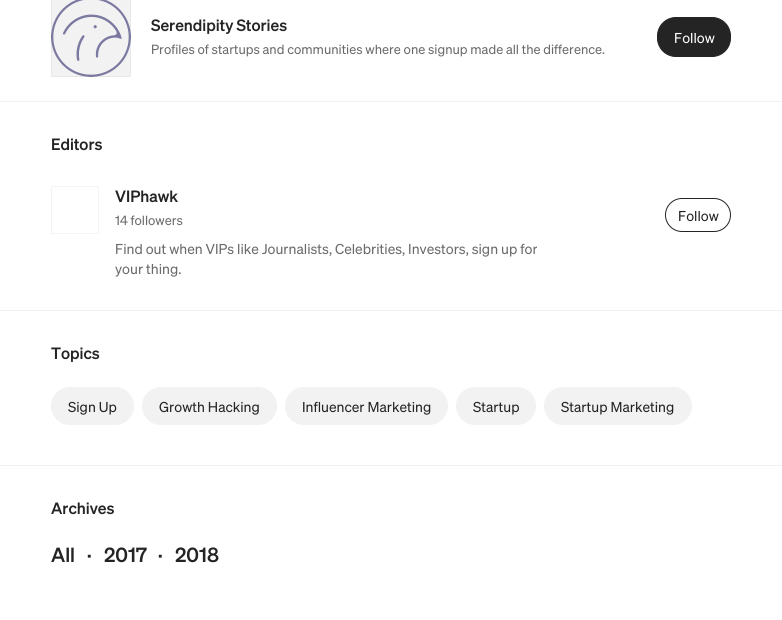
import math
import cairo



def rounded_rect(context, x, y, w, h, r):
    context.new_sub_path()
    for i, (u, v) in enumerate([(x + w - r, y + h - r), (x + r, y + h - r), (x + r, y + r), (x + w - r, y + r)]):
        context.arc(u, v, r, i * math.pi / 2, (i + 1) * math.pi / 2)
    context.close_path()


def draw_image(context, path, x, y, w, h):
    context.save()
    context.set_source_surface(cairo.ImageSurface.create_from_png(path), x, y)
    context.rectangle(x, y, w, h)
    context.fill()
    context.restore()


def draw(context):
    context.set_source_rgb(1, 1, 1)
    context.paint()
    context.set_source_rgb(242 / 255, 242 / 255, 242 / 255)
    rounded_rect(context, 51, -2, 80, 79, 2)
    context.fill()
    draw_image(context, "images/1.png", 51, 0, 80, 77)
    context.rectangle(51.5, -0.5, 79, 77)
    context.set_source_rgba(0, 0, 0, 0.05)
    context.set_line_width(1)
    context.stroke()
    context.set_source_rgb(36 / 255, 36 / 255, 36 / 255)
    rounded_rect(context, 657.5, 17.5, 73, 39, 18.5)
    context.fill_preserve()
    context.stroke()
    context.set_source_rgb(242 / 255, 242 / 255, 242 / 255)
    context.rectangle(0, 101, 782, 1)
    context.fill()
    draw_image(context, "images/2.png", 51, 186, 48, 48)
    context.rectangle(51.5, 186.5, 47, 47)
    context.set_source_rgba(0, 0, 0, 0.05)
    context.stroke()
    rounded_rect(context, 665.5, 198.5, 65, 33, 16.5)
    context.set_source_rgb(36 / 255, 36 / 255, 36 / 255)
    context.stroke()
    context.set_source_rgb(242 / 255, 242 / 255, 242 / 255)
    context.rectangle(0, 310, 782, 1)
    context.fill()
    rounded_rect(context, 51.5, 387.5, 82, 37, 18.5)
    context.fill_preserve()
    context.stroke()
    rounded_rect(context, 142.5, 387.5, 134, 37, 18.5)
    context.fill_preserve()
    context.stroke()
    rounded_rect(context, 285.5, 387.5, 162, 37, 18.5)
    context.fill_preserve()
    context.stroke()
    rounded_rect(context, 456.5, 387.5, 79, 37, 18.5)
    context.fill_preserve()
    context.stroke()
    rounded_rect(context, 544.5, 387.5, 147, 37, 18.5)
    context.fill_preserve()
    context.stroke()
    context.rectangle(0, 465, 782, 1)
    context.fill()
    context.select_font_face("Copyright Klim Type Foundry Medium", cairo.FontSlant.ITALIC)
    context.set_font_size(16)
    context.set_source_rgb(36 / 255, 36 / 255, 36 / 255)
    context.move_to(151, 31)
    context.show_text("Serendipity Stories")
    context.select_font_face("Copyright Klim Type Foundry", cairo.FontSlant.ITALIC)
    context.set_font_size(13)
    context.set_source_rgb(107 / 255, 107 / 255, 107 / 255)
    context.move_to(151, 54)
    context.show_text("Profiles of startups and communities where one signup made all the difference.")
    context.set_font_size(14)
    context.set_source_rgb(1, 1, 1)
    context.move_to(674, 43)
    context.show_text("Follow")
    context.select_font_face("Copyright Klim Type Foundry Medium", cairo.FontSlant.ITALIC)
    context.set_font_size(16)
    context.set_source_rgb(36 / 255, 36 / 255, 36 / 255)
    context.move_to(51, 150)
    context.show_text("Editors")
    context.move_to(115, 202)
    context.show_text("VIPhawk")
    context.select_font_face("Copyright Klim Type Foundry", cairo.FontSlant.ITALIC)
    context.set_font_size(13)
    context.set_source_rgb(107 / 255, 107 / 255, 107 / 255)
    context.move_to(115, 225)
    context.show_text("14 followers")
    context.set_font_size(14)
    context.move_to(115, 254)
    context.show_text("Find out when VIPs like Journalists, Celebrities, Investors, sign up for")
    context.move_to(115, 274)
    context.show_text("your thing.")
    context.set_source_rgb(36 / 255, 36 / 255, 36 / 255)
    context.move_to(678, 221)
    context.show_text("Follow")
    context.select_font_face("Copyright Klim Type Foundry Medium", cairo.FontSlant.ITALIC)
    context.set_font_size(16)
    context.move_to(51, 359)
    context.show_text("Topics")
    context.select_font_face("Copyright Klim Type Foundry", cairo.FontSlant.ITALIC)
    context.set_font_size(14)
    context.move_to(68, 412)
    context.show_text("Sign Up")
    context.move_to(159, 412)
    context.show_text("Growth Hacking")
    context.move_to(302, 412)
    context.show_text("Influencer Marketing")
    context.move_to(473, 412)
    context.show_text("Startup")
    context.move_to(561, 412)
    context.show_text("Startup Marketing")
    context.select_font_face("Copyright Klim Type Foundry Medium", cairo.FontSlant.ITALIC)
    context.set_font_size(16)
    context.move_to(51, 514)
    context.show_text("Archives")
    context.set_font_size(20)
    context.move_to(51, 562)
    context.show_text("All")
    context.move_to(87, 562)
    context.show_text("·")
    context.move_to(104, 562)
    context.show_text("2017")
    context.move_to(158, 562)
    context.show_text("·")
    context.move_to(175, 562)
    context.show_text("2018")


surface = cairo.ImageSurface(cairo.Format.RGB24, 782, 620)
context = cairo.Context(surface)
options = cairo.FontOptions()
options.set_hint_metrics(cairo.HintMetrics.OFF)
options.set_hint_style(cairo.HintStyle.NONE)
context.set_font_options(options)
context.set_miter_limit(4)
draw(context)
surface.write_to_png("out.png")
